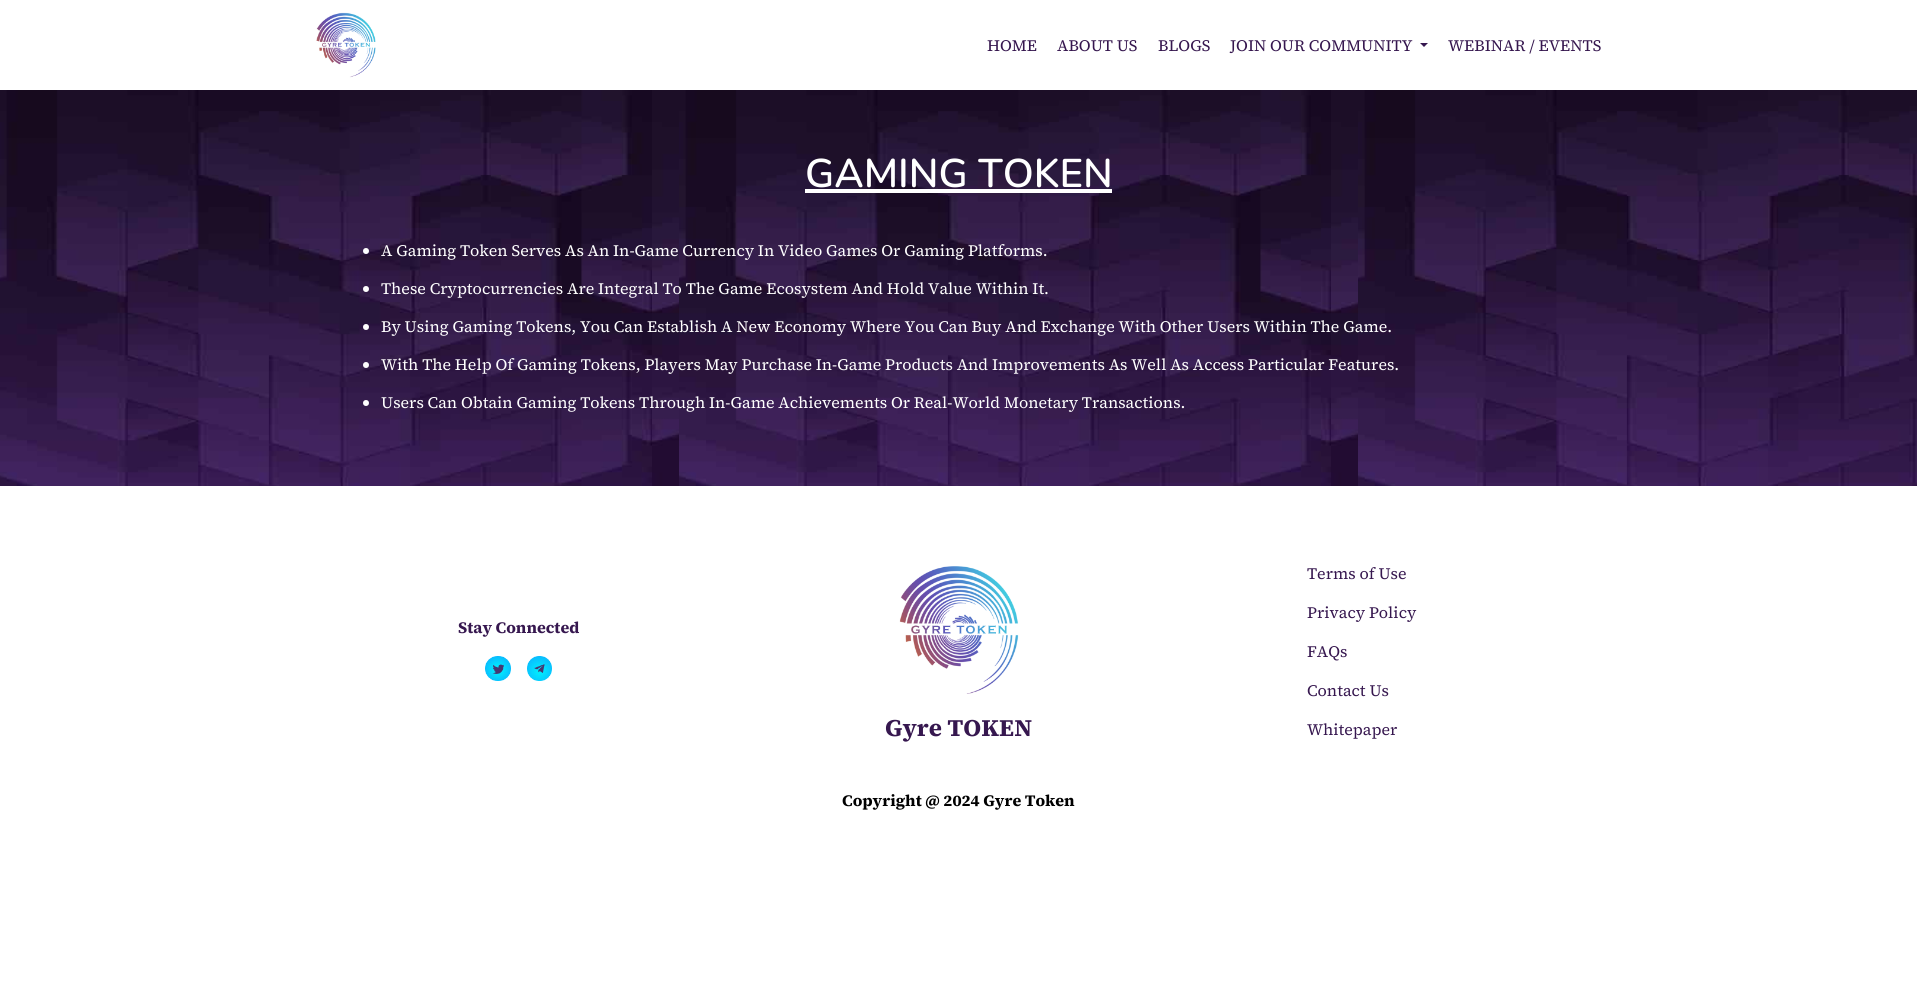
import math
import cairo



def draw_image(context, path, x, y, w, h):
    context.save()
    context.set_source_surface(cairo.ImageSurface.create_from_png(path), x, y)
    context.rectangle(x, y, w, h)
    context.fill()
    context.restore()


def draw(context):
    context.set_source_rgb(1, 1, 1)
    context.paint()
    draw_image(context, "images/1.png", 316, 12, 60, 66)
    context.set_source_rgb(54 / 255, 23 / 255, 79 / 255)
    context.new_path()
    context.move_to(1420, 43)
    context.line_to(1428, 43)
    context.line_to(1424, 47)
    context.close_path()
    context.fill()
    draw_image(context, "images/2.png", 0, 90, 1917, 396)
    context.set_source_rgb(1, 1, 1)
    context.rectangle(805, 189, 307, 4)
    context.fill()
    context.arc(366, 251, 3, 0, 2 * math.pi)
    context.fill()
    context.arc(366, 289, 3, 0, 2 * math.pi)
    context.fill()
    context.arc(366, 327, 3, 0, 2 * math.pi)
    context.fill()
    context.arc(366, 365, 3, 0, 2 * math.pi)
    context.fill()
    context.arc(366, 403, 3, 0, 2 * math.pi)
    context.fill()
    draw_image(context, "images/3.png", 485, 656, 26, 25)
    draw_image(context, "images/4.png", 527, 656, 25, 25)
    draw_image(context, "images/5.png", 899, 566, 120, 128)
    context.select_font_face("Source Serif 4")
    context.set_font_size(16)
    context.set_source_rgb(54 / 255, 23 / 255, 79 / 255)
    context.move_to(987, 51)
    context.show_text("HOME")
    context.move_to(1057, 51)
    context.show_text("ABOUT US")
    context.move_to(1158, 51)
    context.show_text("BLOGS")
    context.move_to(1230, 51)
    context.show_text("JOIN OUR COMMUNITY")
    context.move_to(1448, 51)
    context.show_text("WEBINAR / EVENTS")
    context.select_font_face("Nunito SemiBold")
    context.set_font_size(40)
    context.set_source_rgb(1, 1, 1)
    context.move_to(805, 187)
    context.show_text("GAMING TOKEN")
    context.select_font_face("Source Serif 4")
    context.set_font_size(16)
    context.move_to(381, 256)
    context.show_text("A Gaming Token Serves As An In-Game Currency In Video Games Or Gaming Platforms.")
    context.move_to(381, 294)
    context.show_text("These Cryptocurrencies Are Integral To The Game Ecosystem And Hold Value Within It.")
    context.move_to(381, 332)
    context.show_text("By Using Gaming Tokens, You Can Establish A New Economy Where You Can Buy And Exchange With Other Users Within The Game.")
    context.move_to(381, 370)
    context.show_text("With The Help Of Gaming Tokens, Players May Purchase In-Game Products And Improvements As Well As Access Particular Features.")
    context.move_to(381, 408)
    context.show_text("Users Can Obtain Gaming Tokens Through In-Game Achievements Or Real-World Monetary Transactions.")
    context.select_font_face("Source Serif 4", cairo.FontSlant.NORMAL, cairo.FontWeight.BOLD)
    context.set_source_rgb(54 / 255, 23 / 255, 79 / 255)
    context.move_to(458, 633)
    context.show_text("Stay Connected")
    context.select_font_face("Source Serif 4")
    context.move_to(1307, 579)
    context.show_text("Terms of Use")
    context.move_to(1307, 618)
    context.show_text("Privacy Policy")
    context.move_to(1307, 657)
    context.show_text("FAQs")
    context.move_to(1307, 696)
    context.show_text("Contact Us")
    context.move_to(1307, 735)
    context.show_text("Whitepaper")
    context.select_font_face("Source Serif 4", cairo.FontSlant.NORMAL, cairo.FontWeight.BOLD)
    context.set_font_size(24)
    context.move_to(885, 736)
    context.show_text("Gyre TOKEN")
    context.set_font_size(16)
    context.set_source_rgb(0, 0, 0)
    context.move_to(842, 806)
    context.show_text("Copyright @ 2024 Gyre Token")


surface = cairo.ImageSurface(cairo.Format.RGB24, 1917, 996)
context = cairo.Context(surface)
options = cairo.FontOptions()
options.set_hint_metrics(cairo.HintMetrics.OFF)
options.set_hint_style(cairo.HintStyle.NONE)
context.set_font_options(options)
context.set_miter_limit(4)
draw(context)
surface.write_to_png("out.png")
